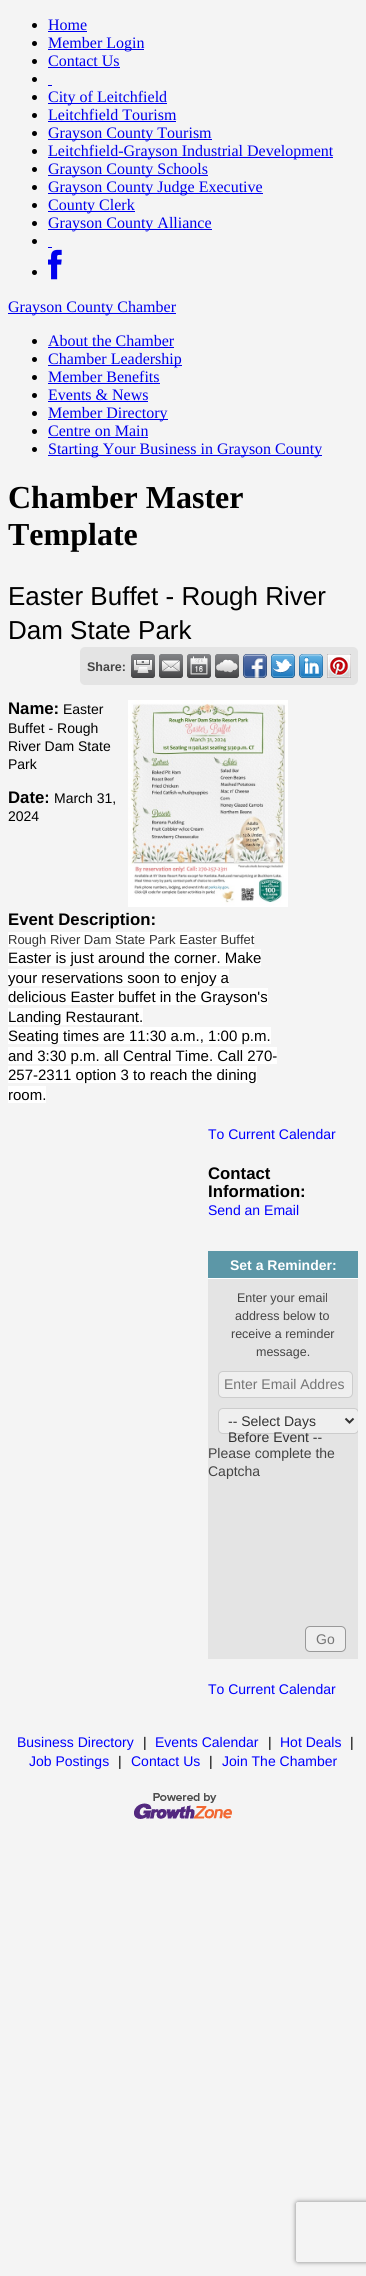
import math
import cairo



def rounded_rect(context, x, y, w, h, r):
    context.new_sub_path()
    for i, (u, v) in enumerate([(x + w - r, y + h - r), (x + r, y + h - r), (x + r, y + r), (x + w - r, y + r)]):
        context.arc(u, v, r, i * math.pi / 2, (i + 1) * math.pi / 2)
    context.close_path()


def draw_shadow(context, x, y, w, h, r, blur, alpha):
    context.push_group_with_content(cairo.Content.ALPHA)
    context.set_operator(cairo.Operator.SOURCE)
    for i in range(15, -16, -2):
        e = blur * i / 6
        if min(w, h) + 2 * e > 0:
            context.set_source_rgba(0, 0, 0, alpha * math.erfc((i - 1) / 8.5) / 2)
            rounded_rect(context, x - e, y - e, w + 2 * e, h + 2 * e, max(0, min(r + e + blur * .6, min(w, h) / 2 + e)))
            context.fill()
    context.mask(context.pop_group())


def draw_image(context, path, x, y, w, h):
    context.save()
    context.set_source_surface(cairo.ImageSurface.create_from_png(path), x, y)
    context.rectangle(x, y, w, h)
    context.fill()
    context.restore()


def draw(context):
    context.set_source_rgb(244 / 255, 244 / 255, 244 / 255)
    context.paint()
    context.set_source_rgb(0, 0, 0)
    context.arc(34.5, 25.5, 2.5, 0, 2 * math.pi)
    context.fill()
    context.set_source_rgb(0, 0, 238 / 255)
    context.rectangle(48, 31, 39, 1)
    context.fill()
    context.set_source_rgb(0, 0, 0)
    context.arc(34.5, 43.5, 2.5, 0, 2 * math.pi)
    context.fill()
    context.set_source_rgb(0, 0, 238 / 255)
    context.rectangle(48, 49, 96, 1)
    context.fill()
    context.set_source_rgb(0, 0, 0)
    context.arc(34.5, 61.5, 2.5, 0, 2 * math.pi)
    context.fill()
    context.set_source_rgb(0, 0, 238 / 255)
    context.rectangle(48, 67, 72, 1)
    context.fill()
    context.set_source_rgb(0, 0, 0)
    context.arc(34.5, 79.5, 2.5, 0, 2 * math.pi)
    context.fill()
    context.set_source_rgb(0, 0, 238 / 255)
    context.rectangle(48, 85, 4, 1)
    context.fill()
    context.set_source_rgb(0, 0, 0)
    context.arc(34.5, 97.5, 2.5, 0, 2 * math.pi)
    context.fill()
    context.set_source_rgb(0, 0, 238 / 255)
    context.rectangle(48, 103, 119, 1)
    context.fill()
    context.set_source_rgb(0, 0, 0)
    context.arc(34.5, 115.5, 2.5, 0, 2 * math.pi)
    context.fill()
    context.set_source_rgb(0, 0, 238 / 255)
    context.rectangle(48, 121, 128, 1)
    context.fill()
    context.set_source_rgb(0, 0, 0)
    context.arc(34.5, 133.5, 2.5, 0, 2 * math.pi)
    context.fill()
    context.set_source_rgb(0, 0, 238 / 255)
    context.rectangle(48, 139, 164, 1)
    context.fill()
    context.set_source_rgb(0, 0, 0)
    context.arc(34.5, 151.5, 2.5, 0, 2 * math.pi)
    context.fill()
    context.set_source_rgb(0, 0, 238 / 255)
    context.rectangle(48, 157, 285, 1)
    context.fill()
    context.set_source_rgb(0, 0, 0)
    context.arc(34.5, 169.5, 2.5, 0, 2 * math.pi)
    context.fill()
    context.set_source_rgb(0, 0, 238 / 255)
    context.rectangle(48, 175, 160, 1)
    context.fill()
    context.set_source_rgb(0, 0, 0)
    context.arc(34.5, 187.5, 2.5, 0, 2 * math.pi)
    context.fill()
    context.set_source_rgb(0, 0, 238 / 255)
    context.rectangle(48, 193, 215, 1)
    context.fill()
    context.set_source_rgb(0, 0, 0)
    context.arc(34.5, 205.5, 2.5, 0, 2 * math.pi)
    context.fill()
    context.set_source_rgb(0, 0, 238 / 255)
    context.rectangle(48, 211, 87, 1)
    context.fill()
    context.set_source_rgb(0, 0, 0)
    context.arc(34.5, 223.5, 2.5, 0, 2 * math.pi)
    context.fill()
    context.set_source_rgb(0, 0, 238 / 255)
    context.rectangle(48, 229, 164, 1)
    context.fill()
    context.set_source_rgb(0, 0, 0)
    context.arc(34.5, 241.5, 2.5, 0, 2 * math.pi)
    context.fill()
    context.set_source_rgb(0, 0, 238 / 255)
    context.rectangle(48, 247, 4, 1)
    context.fill()
    context.set_source_rgb(0, 0, 0)
    context.arc(34.5, 272.5, 2.5, 0, 2 * math.pi)
    context.fill()
    draw_image(context, "images/1.png", 48, 249, 14, 31)
    context.set_source_rgb(0, 0, 238 / 255)
    context.rectangle(8, 313, 168, 1)
    context.fill()
    context.set_source_rgb(0, 0, 0)
    context.arc(34.5, 341.5, 2.5, 0, 2 * math.pi)
    context.fill()
    context.set_source_rgb(0, 0, 238 / 255)
    context.rectangle(48, 347, 126, 1)
    context.fill()
    context.set_source_rgb(0, 0, 0)
    context.arc(34.5, 359.5, 2.5, 0, 2 * math.pi)
    context.fill()
    context.set_source_rgb(0, 0, 238 / 255)
    context.rectangle(48, 365, 134, 1)
    context.fill()
    context.set_source_rgb(0, 0, 0)
    context.arc(34.5, 377.5, 2.5, 0, 2 * math.pi)
    context.fill()
    context.set_source_rgb(0, 0, 238 / 255)
    context.rectangle(48, 383, 112, 1)
    context.fill()
    context.set_source_rgb(0, 0, 0)
    context.arc(34.5, 395.5, 2.5, 0, 2 * math.pi)
    context.fill()
    context.set_source_rgb(0, 0, 238 / 255)
    context.rectangle(48, 401, 100, 1)
    context.fill()
    context.set_source_rgb(0, 0, 0)
    context.arc(34.5, 413.5, 2.5, 0, 2 * math.pi)
    context.fill()
    context.set_source_rgb(0, 0, 238 / 255)
    context.rectangle(48, 419, 120, 1)
    context.fill()
    context.set_source_rgb(0, 0, 0)
    context.arc(34.5, 431.5, 2.5, 0, 2 * math.pi)
    context.fill()
    context.set_source_rgb(0, 0, 238 / 255)
    context.rectangle(48, 437, 100, 1)
    context.fill()
    context.set_source_rgb(0, 0, 0)
    context.arc(34.5, 449.5, 2.5, 0, 2 * math.pi)
    context.fill()
    context.set_source_rgb(0, 0, 238 / 255)
    context.rectangle(48, 455, 274, 1)
    context.fill()
    context.set_source_rgb(228 / 255, 228 / 255, 228 / 255)
    rounded_rect(context, 80, 647, 278, 38, 5)
    context.fill()
    draw_image(context, "images/2.png", 131, 654, 24, 24)
    draw_image(context, "images/3.png", 159, 654, 24, 24)
    draw_image(context, "images/4.png", 187, 654, 24, 24)
    draw_image(context, "images/5.png", 215, 654, 24, 24)
    draw_image(context, "images/6.png", 243, 654, 24, 24)
    draw_image(context, "images/7.png", 271, 654, 24, 24)
    draw_image(context, "images/8.png", 299, 654, 24, 24)
    draw_image(context, "images/9.png", 327, 654, 24, 24)
    draw_image(context, "images/10.png", 128, 700, 160, 207)
    context.set_source_rgb(1, 1, 1)
    context.rectangle(8, 932, 246, 15)
    context.fill()
    context.rectangle(8, 949, 253, 17)
    context.fill()
    context.rectangle(8, 969, 221, 17)
    context.fill()
    context.rectangle(8, 988, 260, 17)
    context.fill()
    context.rectangle(8, 1008, 135, 17)
    context.fill()
    context.rectangle(8, 1027, 263, 17)
    context.fill()
    context.rectangle(8, 1047, 269, 17)
    context.fill()
    context.rectangle(8, 1066, 249, 17)
    context.fill()
    context.rectangle(8, 1086, 38, 17)
    context.fill()
    context.set_source_rgb(228 / 255, 228 / 255, 228 / 255)
    context.rectangle(208, 1279, 150, 380)
    context.fill()
    context.set_source_rgb(92 / 255, 151 / 255, 167 / 255)
    context.rectangle(208, 1251, 150, 27)
    context.fill()
    context.set_source_rgb(1, 1, 1)
    context.rectangle(208, 1278, 150, 1)
    context.fill()
    context.set_source_rgb(239 / 255, 239 / 255, 239 / 255)
    rounded_rect(context, 218.5, 1371.5, 134, 26, 4.5)
    context.fill_preserve()
    context.set_source_rgb(204 / 255, 204 / 255, 204 / 255)
    context.set_line_width(1)
    context.stroke()
    context.save()
    context.rectangle(208, 1279, 150, 380)
    context.clip()
    context.set_source_rgb(239 / 255, 239 / 255, 239 / 255)
    rounded_rect(context, 218.5, 1408.5, 140, 25, 4.5)
    context.fill_preserve()
    context.set_source_rgb(204 / 255, 204 / 255, 204 / 255)
    context.stroke()
    context.restore()
    context.new_path()
    context.move_to(345.5, 1418.5)
    context.line_to(349.5, 1422.5)
    context.line_to(353.5, 1418.5)
    context.set_source_rgb(51 / 255, 51 / 255, 51 / 255)
    context.set_line_width(2)
    context.stroke()
    context.set_source_rgb(239 / 255, 239 / 255, 239 / 255)
    rounded_rect(context, 305.5, 1626.5, 40, 25, 4.5)
    context.fill_preserve()
    context.set_source_rgb(153 / 255, 153 / 255, 153 / 255)
    context.set_line_width(1)
    context.stroke()
    draw_image(context, "images/11.png", 134, 1793, 98, 26)
    context.save()
    context.set_fill_rule(cairo.FillRule.EVEN_ODD)
    context.new_path()
    context.move_to(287, 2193)
    context.line_to(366, 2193)
    context.line_to(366, 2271)
    context.line_to(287, 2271)
    context.close_path()
    context.move_to(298, 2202)
    context.line_to(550, 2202)
    context.curve_to(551, 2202, 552, 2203, 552, 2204)
    context.line_to(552, 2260)
    context.curve_to(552, 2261, 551, 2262, 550, 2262)
    context.line_to(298, 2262)
    context.curve_to(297, 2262, 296, 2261, 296, 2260)
    context.line_to(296, 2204)
    context.curve_to(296, 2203, 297, 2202, 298, 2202)
    context.close_path()
    context.clip()
    context.set_source_rgb(128 / 255, 128 / 255, 128 / 255)
    draw_shadow(context, 296, 2202, 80, 60, 2, 2.5, 1)
    context.restore()
    context.select_font_face("Liberation Serif")
    context.set_font_size(16)
    context.set_source_rgb(0, 0, 238 / 255)
    context.move_to(48, 30)
    context.show_text("Home")
    context.move_to(48, 48)
    context.show_text("Member Login")
    context.move_to(48, 66)
    context.show_text("Contact Us")
    context.move_to(48, 102)
    context.show_text("City of Leitchfield")
    context.move_to(48, 120)
    context.show_text("Leitchfield Tourism")
    context.move_to(48, 138)
    context.show_text("Grayson County Tourism")
    context.move_to(48, 156)
    context.show_text("Leitchfield-Grayson Industrial Development")
    context.move_to(48, 174)
    context.show_text("Grayson County Schools")
    context.move_to(48, 192)
    context.show_text("Grayson County Judge Executive")
    context.move_to(48, 210)
    context.show_text("County Clerk")
    context.move_to(48, 228)
    context.show_text("Grayson County Alliance")
    context.move_to(8, 312)
    context.show_text("Grayson County Chamber")
    context.move_to(48, 346)
    context.show_text("About the Chamber")
    context.move_to(48, 364)
    context.show_text("Chamber Leadership")
    context.move_to(48, 382)
    context.show_text("Member Benefits")
    context.move_to(48, 400)
    context.show_text("Events & News")
    context.move_to(48, 418)
    context.show_text("Member Directory")
    context.move_to(48, 436)
    context.show_text("Centre on Main")
    context.move_to(48, 454)
    context.show_text("Starting Your Business in Grayson County")
    context.select_font_face("Liberation Serif", cairo.FontSlant.NORMAL, cairo.FontWeight.BOLD)
    context.set_font_size(32)
    context.set_source_rgb(0, 0, 0)
    context.move_to(8, 508)
    context.show_text("Chamber Master")
    context.move_to(8, 545)
    context.show_text("Template")
    context.select_font_face("Liberation Sans")
    context.set_font_size(26)
    context.move_to(8, 605)
    context.show_text("Easter Buffet - Rough River")
    context.move_to(8, 639)
    context.show_text("Dam State Park")
    context.select_font_face("Liberation Sans", cairo.FontSlant.NORMAL, cairo.FontWeight.BOLD)
    context.set_font_size(12.5)
    context.set_source_rgb(68 / 255, 68 / 255, 68 / 255)
    context.move_to(87, 671)
    context.show_text("Share:")
    context.set_font_size(16.75)
    context.set_source_rgb(0, 0, 0)
    context.move_to(8, 714)
    context.show_text("Name:")
    context.select_font_face("Liberation Sans")
    context.set_font_size(14)
    context.move_to(63, 714)
    context.show_text("Easter")
    context.move_to(8, 733)
    context.show_text("Buffet - Rough")
    context.move_to(8, 751)
    context.show_text("River Dam State")
    context.move_to(8, 769)
    context.show_text("Park")
    context.select_font_face("Liberation Sans", cairo.FontSlant.NORMAL, cairo.FontWeight.BOLD)
    context.set_font_size(16.75)
    context.move_to(8, 803)
    context.show_text("Date:")
    context.select_font_face("Liberation Sans")
    context.set_font_size(14)
    context.move_to(54, 803)
    context.show_text("March 31,")
    context.move_to(8, 821)
    context.show_text("2024")
    context.select_font_face("Liberation Sans", cairo.FontSlant.NORMAL, cairo.FontWeight.BOLD)
    context.set_font_size(16.75)
    context.move_to(8, 925)
    context.show_text("Event Description:")
    context.select_font_face("Liberation Sans")
    context.set_font_size(13)
    context.set_source_rgb(51 / 255, 51 / 255, 51 / 255)
    context.move_to(8, 944)
    context.show_text("Rough River Dam State Park Easter Buffet")
    context.set_font_size(15)
    context.set_source_rgb(0, 0, 0)
    context.move_to(8, 963)
    context.show_text("Easter is just around the corner. Make")
    context.move_to(8, 983)
    context.show_text("your reservations soon to enjoy a")
    context.move_to(8, 1002)
    context.show_text("delicious Easter buffet in the Grayson's")
    context.move_to(8, 1022)
    context.show_text("Landing Restaurant.")
    context.move_to(8, 1041)
    context.show_text("Seating times are 11:30 a.m., 1:00 p.m.")
    context.move_to(8, 1061)
    context.show_text("and 3:30 p.m. all Central Time. Call 270-")
    context.move_to(8, 1080)
    context.show_text("257-2311 option 3 to reach the dining")
    context.move_to(8, 1100)
    context.show_text("room.")
    context.set_font_size(14)
    context.set_source_rgb(0, 0, 1)
    context.move_to(208, 1139)
    context.show_text("To Current Calendar")
    context.select_font_face("Liberation Sans", cairo.FontSlant.NORMAL, cairo.FontWeight.BOLD)
    context.set_font_size(16.75)
    context.set_source_rgb(0, 0, 0)
    context.move_to(208, 1179)
    context.show_text("Contact")
    context.move_to(208, 1197)
    context.show_text("Information:")
    context.select_font_face("Liberation Sans")
    context.set_font_size(14)
    context.set_source_rgb(0, 0, 1)
    context.move_to(208, 1215)
    context.show_text("Send an Email")
    context.select_font_face("Liberation Sans", cairo.FontSlant.NORMAL, cairo.FontWeight.BOLD)
    context.set_source_rgb(1, 1, 1)
    context.move_to(230, 1270)
    context.show_text("Set a Reminder:")
    context.select_font_face("Liberation Sans")
    context.set_font_size(12.5)
    context.set_source_rgb(68 / 255, 68 / 255, 68 / 255)
    context.move_to(237, 1302)
    context.show_text("Enter your email")
    context.move_to(235, 1320)
    context.show_text("address below to")
    context.move_to(231, 1338)
    context.show_text("receive a reminder")
    context.move_to(256, 1356)
    context.show_text("message.")
    context.set_font_size(14)
    context.set_source_rgb(117 / 255, 117 / 255, 117 / 255)
    context.move_to(224, 1389)
    context.show_text("Enter Email Addres")
    context.set_source_rgb(51 / 255, 51 / 255, 51 / 255)
    context.move_to(228, 1426)
    context.show_text("-- Select Days")
    context.move_to(228, 1442)
    context.show_text("Before Event --")
    context.set_source_rgb(68 / 255, 68 / 255, 68 / 255)
    context.move_to(208, 1458)
    context.show_text("Please complete the")
    context.move_to(208, 1476)
    context.show_text("Captcha")
    context.set_source_rgb(117 / 255, 117 / 255, 117 / 255)
    context.move_to(316, 1644)
    context.show_text("Go")
    context.set_source_rgb(0, 0, 1)
    context.move_to(208, 1694)
    context.show_text("To Current Calendar")
    context.move_to(17, 1747)
    context.show_text("Business Directory")
    context.set_source_rgb(0, 0, 0)
    context.move_to(143, 1747)
    context.show_text("|")
    context.set_source_rgb(0, 0, 1)
    context.move_to(155, 1747)
    context.show_text("Events Calendar")
    context.set_source_rgb(0, 0, 0)
    context.move_to(268, 1747)
    context.show_text("|")
    context.set_source_rgb(0, 0, 1)
    context.move_to(280, 1747)
    context.show_text("Hot Deals")
    context.set_source_rgb(0, 0, 0)
    context.move_to(350, 1747)
    context.show_text("|")
    context.set_source_rgb(0, 0, 1)
    context.move_to(29, 1766)
    context.show_text("Job Postings")
    context.set_source_rgb(0, 0, 0)
    context.move_to(118, 1766)
    context.show_text("|")
    context.set_source_rgb(0, 0, 1)
    context.move_to(131, 1766)
    context.show_text("Contact Us")
    context.set_source_rgb(0, 0, 0)
    context.move_to(209, 1766)
    context.show_text("|")
    context.set_source_rgb(0, 0, 1)
    context.move_to(222, 1766)
    context.show_text("Join The Chamber")


surface = cairo.ImageSurface(cairo.Format.RGB24, 366, 2276)
context = cairo.Context(surface)
options = cairo.FontOptions()
options.set_hint_metrics(cairo.HintMetrics.OFF)
options.set_hint_style(cairo.HintStyle.NONE)
context.set_font_options(options)
context.set_miter_limit(4)
draw(context)
surface.write_to_png("out.png")
